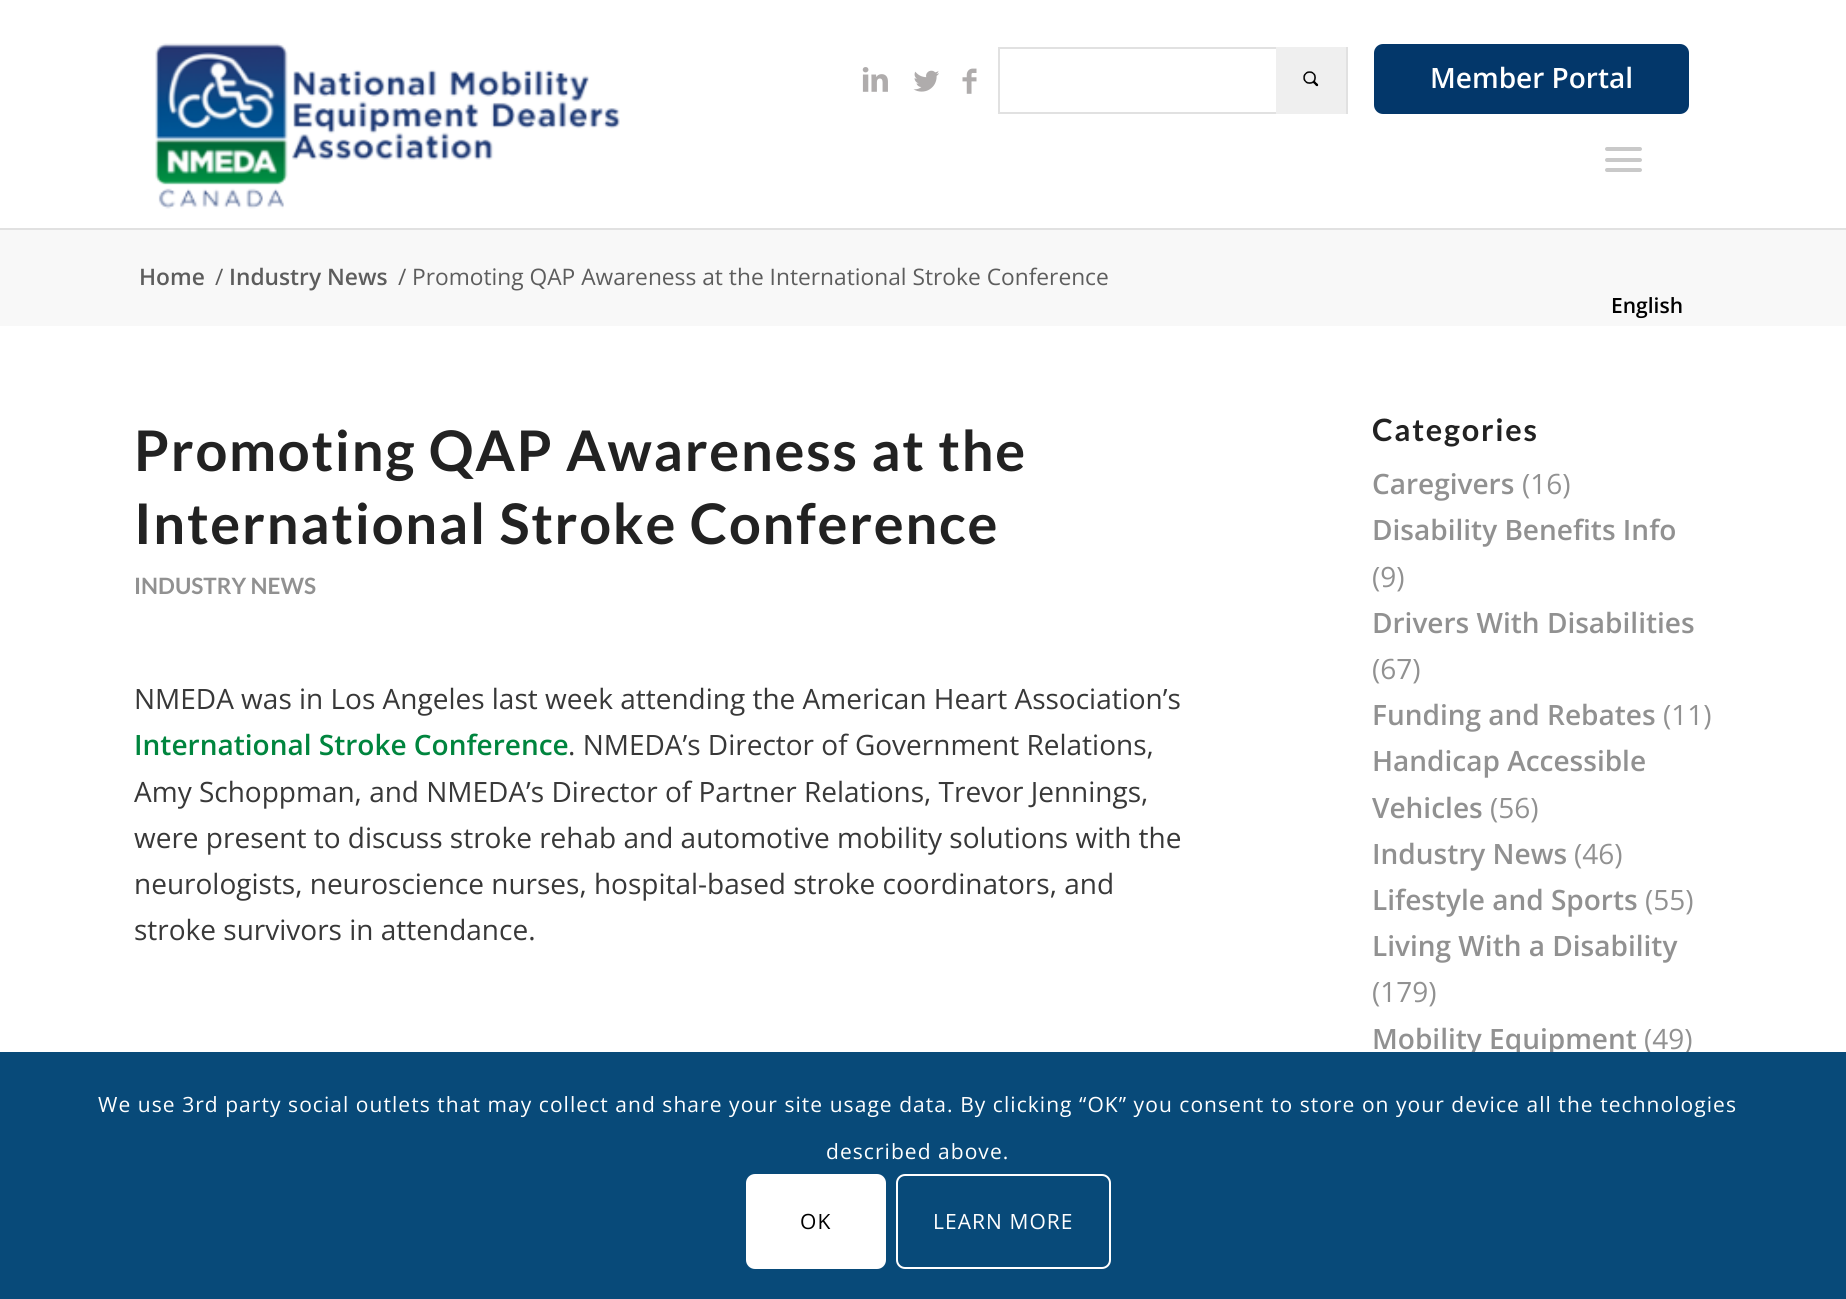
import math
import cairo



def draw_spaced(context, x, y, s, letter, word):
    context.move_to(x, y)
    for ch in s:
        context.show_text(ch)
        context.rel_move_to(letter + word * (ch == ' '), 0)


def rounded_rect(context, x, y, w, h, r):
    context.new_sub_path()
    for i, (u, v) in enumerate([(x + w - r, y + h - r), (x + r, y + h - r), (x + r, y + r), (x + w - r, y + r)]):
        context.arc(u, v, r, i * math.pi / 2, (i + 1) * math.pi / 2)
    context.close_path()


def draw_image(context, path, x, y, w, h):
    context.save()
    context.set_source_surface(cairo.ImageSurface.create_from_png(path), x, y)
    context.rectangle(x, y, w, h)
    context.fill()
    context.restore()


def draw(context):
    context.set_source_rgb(1, 1, 1)
    context.paint()
    draw_image(context, "images/1.png", 862, 67, 26, 25)
    draw_image(context, "images/2.png", 913, 70, 26, 22)
    draw_image(context, "images/3.png", 962, 68, 15, 26)
    context.rectangle(999, 48, 348, 65)
    context.set_source_rgb(225 / 255, 225 / 255, 225 / 255)
    context.stroke()
    context.set_source_rgb(239 / 255, 239 / 255, 239 / 255)
    context.rectangle(1276, 47, 70, 67)
    context.fill()
    draw_image(context, "images/4.png", 1303, 71, 16, 16)
    context.set_source_rgb(3 / 255, 55 / 255, 106 / 255)
    rounded_rect(context, 1374, 44, 315, 70, 9)
    context.fill()
    context.set_source_rgb(248 / 255, 248 / 255, 248 / 255)
    context.rectangle(0, 230, 1846, 96)
    context.fill()
    context.set_source_rgb(225 / 255, 225 / 255, 225 / 255)
    context.rectangle(0, 228, 1846, 2)
    context.fill()
    draw_image(context, "images/5.png", 155, 43, 465, 166)
    context.set_source_rgb(201 / 255, 201 / 255, 201 / 255)
    rounded_rect(context, 1605, 158, 37, 4, 2)
    context.fill()
    rounded_rect(context, 1605, 147, 37, 4, 2)
    context.fill()
    rounded_rect(context, 1605, 168, 37, 4, 2)
    context.fill()
    context.select_font_face("Open Sans SemiBold")
    context.set_font_size(28)
    context.set_source_rgb(1, 1, 1)
    context.move_to(1430, 88)
    context.show_text("Member Portal")
    context.set_font_size(22.75)
    context.set_source_rgb(93 / 255, 93 / 255, 93 / 255)
    context.move_to(139, 285)
    context.show_text("Home")
    context.select_font_face("Open Sans")
    context.move_to(215, 285)
    context.show_text("/")
    context.select_font_face("Open Sans SemiBold")
    context.move_to(229, 285)
    context.show_text("Industry News")
    context.select_font_face("Open Sans")
    context.move_to(398, 285)
    context.show_text("/")
    context.move_to(412, 285)
    context.show_text("Promoting QAP Awareness at the International Stroke Conference")
    context.select_font_face("Lato", cairo.FontSlant.NORMAL, cairo.FontWeight.BOLD)
    context.set_font_size(56)
    context.set_source_rgb(34 / 255, 34 / 255, 34 / 255)
    draw_spaced(context, 134, 471, "Promoting QAP Awareness at the", 1.75, 0)
    draw_spaced(context, 134, 544, "International Stroke Conference", 1.75, 0)
    context.set_font_size(22.5)
    context.set_source_rgb(145 / 255, 145 / 255, 145 / 255)
    context.move_to(134, 594)
    context.show_text("INDUSTRY NEWS")
    context.select_font_face("Open Sans")
    context.set_font_size(28)
    context.set_source_rgb(56 / 255, 56 / 255, 56 / 255)
    context.move_to(134, 709)
    context.show_text("NMEDA was in Los Angeles last week attending the American Heart Association’s")
    context.select_font_face("Open Sans SemiBold")
    context.set_source_rgb(0, 133 / 255, 62 / 255)
    context.move_to(134, 755)
    context.show_text("International Stroke Conference")
    context.select_font_face("Open Sans")
    context.set_source_rgb(56 / 255, 56 / 255, 56 / 255)
    context.move_to(568, 755)
    context.show_text(". NMEDA’s Director of Government Relations,")
    context.move_to(134, 802)
    context.show_text("Amy Schoppman, and NMEDA’s Director of Partner Relations, Trevor Jennings,")
    context.move_to(134, 848)
    context.show_text("were present to discuss stroke rehab and automotive mobility solutions with the")
    context.move_to(134, 894)
    context.show_text("neurologists, neuroscience nurses, hospital-based stroke coordinators, and")
    context.move_to(134, 940)
    context.show_text("stroke survivors in attendance.")
    context.select_font_face("Lato", cairo.FontSlant.NORMAL, cairo.FontWeight.BOLD)
    context.set_font_size(30.75)
    context.set_source_rgb(34 / 255, 34 / 255, 34 / 255)
    draw_spaced(context, 1372, 441, "Categories", 1.75, 0)
    context.select_font_face("Open Sans SemiBold")
    context.set_font_size(28)
    context.set_source_rgb(145 / 255, 145 / 255, 145 / 255)
    context.move_to(1372, 494)
    context.show_text("Caregivers")
    context.select_font_face("Open Sans")
    context.move_to(1522, 494)
    context.show_text("(16)")
    context.select_font_face("Open Sans SemiBold")
    context.move_to(1372, 540)
    context.show_text("Disability Benefits Info")
    context.select_font_face("Open Sans")
    context.move_to(1372, 587)
    context.show_text("(9)")
    context.select_font_face("Open Sans SemiBold")
    context.move_to(1372, 633)
    context.show_text("Drivers With Disabilities")
    context.select_font_face("Open Sans")
    context.move_to(1372, 679)
    context.show_text("(67)")
    context.select_font_face("Open Sans SemiBold")
    context.move_to(1372, 725)
    context.show_text("Funding and Rebates")
    context.select_font_face("Open Sans")
    context.move_to(1663, 725)
    context.show_text("(11)")
    context.select_font_face("Open Sans SemiBold")
    context.move_to(1372, 771)
    context.show_text("Handicap Accessible")
    context.move_to(1372, 818)
    context.show_text("Vehicles")
    context.select_font_face("Open Sans")
    context.move_to(1490, 818)
    context.show_text("(56)")
    context.select_font_face("Open Sans SemiBold")
    context.move_to(1372, 864)
    context.show_text("Industry News")
    context.select_font_face("Open Sans")
    context.move_to(1574, 864)
    context.show_text("(46)")
    context.select_font_face("Open Sans SemiBold")
    context.move_to(1372, 910)
    context.show_text("Lifestyle and Sports")
    context.select_font_face("Open Sans")
    context.move_to(1645, 910)
    context.show_text("(55)")
    context.select_font_face("Open Sans SemiBold")
    context.move_to(1372, 956)
    context.show_text("Living With a Disability")
    context.select_font_face("Open Sans")
    context.move_to(1372, 1002)
    context.show_text("(179)")
    context.select_font_face("Open Sans SemiBold")
    context.move_to(1372, 1049)
    context.show_text("Mobility Equipment")
    context.select_font_face("Open Sans")
    context.move_to(1644, 1049)
    context.show_text("(49)")
    context.select_font_face("Open Sans SemiBold")
    context.set_font_size(21)
    context.set_source_rgb(0, 0, 0)
    context.move_to(1611, 313)
    context.show_text("English")
    context.set_source_rgb(8 / 255, 74 / 255, 121 / 255)
    context.rectangle(0, 1052, 1846, 247)
    context.fill()
    context.select_font_face("Open Sans")
    context.set_source_rgb(1, 1, 1)
    draw_spaced(context, 98, 1112, "We use 3rd party social outlets that may collect and share your site usage data. By clicking “OK” you consent to store on your device all the technologies", 1.05, 0)
    draw_spaced(context, 826, 1159, "described above.", 1.05, 0)
    rounded_rect(context, 746, 1174, 140, 95, 9)
    context.fill()
    context.set_source_rgb(0, 0, 0)
    draw_spaced(context, 800, 1229, "OK", 1.05, 0)
    rounded_rect(context, 897, 1175, 213, 93, 8)
    context.set_source_rgb(1, 1, 1)
    context.stroke()
    draw_spaced(context, 933, 1229, "LEARN MORE", 1.05, 0)


surface = cairo.ImageSurface(cairo.Format.RGB24, 1846, 1299)
context = cairo.Context(surface)
options = cairo.FontOptions()
options.set_hint_metrics(cairo.HintMetrics.OFF)
options.set_hint_style(cairo.HintStyle.NONE)
context.set_font_options(options)
context.set_miter_limit(4)
draw(context)
surface.write_to_png("out.png")
